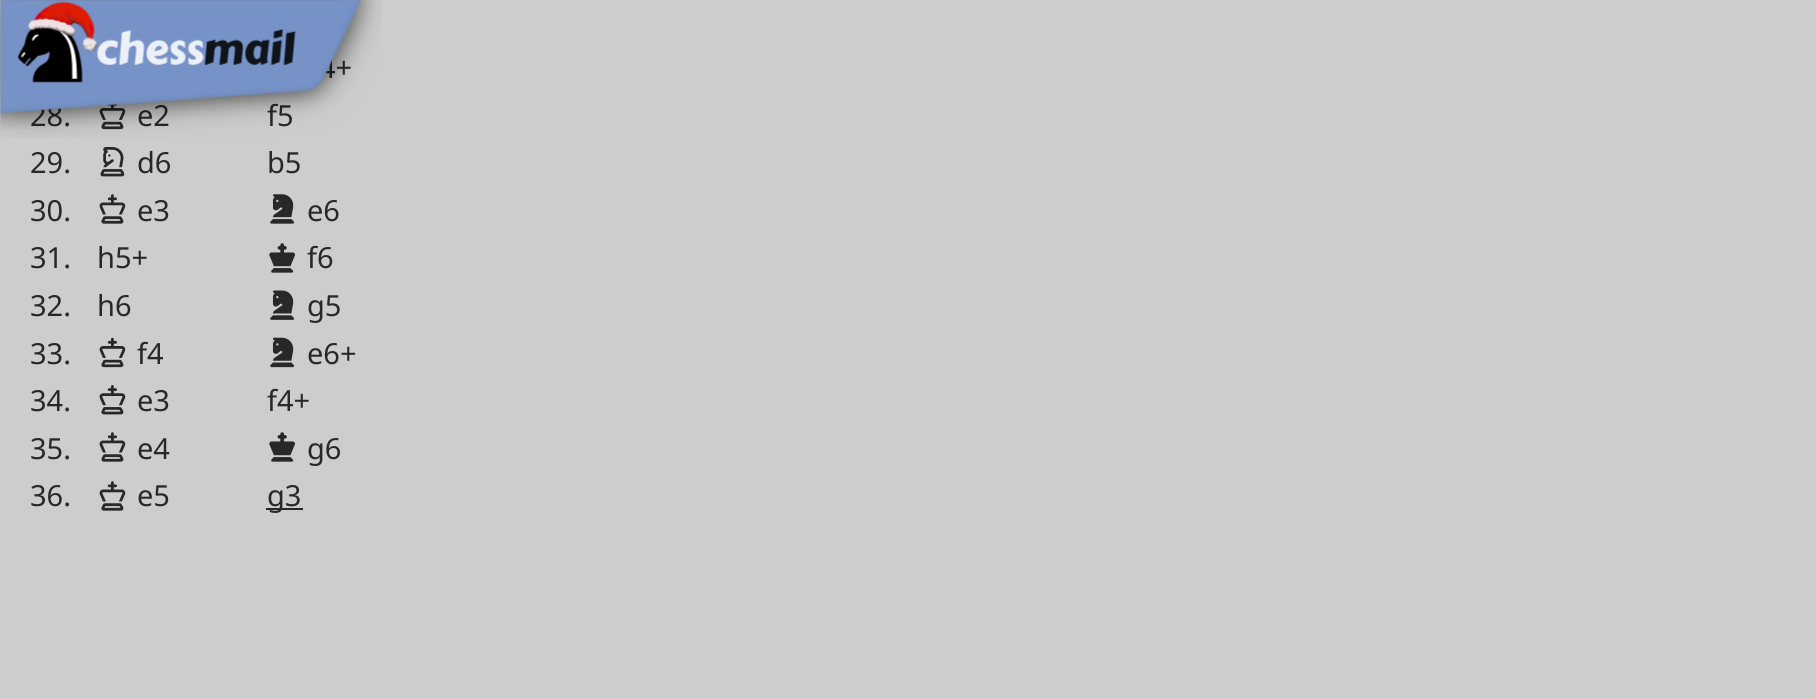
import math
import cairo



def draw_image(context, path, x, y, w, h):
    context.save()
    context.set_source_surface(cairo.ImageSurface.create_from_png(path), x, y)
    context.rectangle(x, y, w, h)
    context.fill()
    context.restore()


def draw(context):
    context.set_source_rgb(205 / 255, 205 / 255, 205 / 255)
    context.paint()
    draw_image(context, "images/2.png", 99, 103, 27, 27)
    draw_image(context, "images/3.png", 100, 147, 25, 30)
    draw_image(context, "images/4.png", 99, 194, 27, 30)
    draw_image(context, "images/5.png", 270, 194, 25, 30)
    draw_image(context, "images/6.png", 269, 243, 26, 30)
    draw_image(context, "images/7.png", 270, 290, 25, 30)
    draw_image(context, "images/8.png", 99, 337, 27, 31)
    draw_image(context, "images/9.png", 270, 337, 25, 31)
    draw_image(context, "images/10.png", 99, 385, 27, 30)
    draw_image(context, "images/4.png", 99, 432, 27, 30)
    draw_image(context, "images/6.png", 269, 432, 26, 30)
    draw_image(context, "images/4.png", 99, 481, 27, 30)
    context.set_source_rgb(40 / 255, 40 / 255, 40 / 255)
    context.rectangle(266, 508, 37, 2)
    context.fill()
    context.select_font_face("Noto Sans")
    context.set_font_size(29)
    context.move_to(319, 78)
    context.show_text("4+")
    context.move_to(30, 126)
    context.show_text("28.")
    context.move_to(137, 126)
    context.show_text("e2")
    context.move_to(267, 126)
    context.show_text("f5")
    draw_image(context, "images/1.png", 0, 0, 382, 139)
    context.move_to(30, 173)
    context.show_text("29.")
    context.move_to(137, 173)
    context.show_text("d6")
    context.move_to(267, 173)
    context.show_text("b5")
    context.move_to(30, 221)
    context.show_text("30.")
    context.move_to(137, 221)
    context.show_text("e3")
    context.move_to(307, 221)
    context.show_text("e6")
    context.move_to(30, 268)
    context.show_text("31.")
    context.move_to(97, 268)
    context.show_text("h5+")
    context.move_to(307, 268)
    context.show_text("f6")
    context.move_to(30, 316)
    context.show_text("32.")
    context.move_to(97, 316)
    context.show_text("h6")
    context.move_to(307, 316)
    context.show_text("g5")
    context.move_to(30, 364)
    context.show_text("33.")
    context.move_to(137, 364)
    context.show_text("f4")
    context.move_to(307, 364)
    context.show_text("e6+")
    context.move_to(30, 411)
    context.show_text("34.")
    context.move_to(137, 411)
    context.show_text("e3")
    context.move_to(267, 411)
    context.show_text("f4+")
    context.move_to(30, 459)
    context.show_text("35.")
    context.move_to(137, 459)
    context.show_text("e4")
    context.move_to(307, 459)
    context.show_text("g6")
    context.move_to(30, 506)
    context.show_text("36.")
    context.move_to(137, 506)
    context.show_text("e5")
    context.move_to(267, 506)
    context.show_text("g3")


surface = cairo.ImageSurface(cairo.Format.RGB24, 1816, 699)
context = cairo.Context(surface)
options = cairo.FontOptions()
options.set_hint_metrics(cairo.HintMetrics.OFF)
options.set_hint_style(cairo.HintStyle.NONE)
context.set_font_options(options)
context.set_miter_limit(4)
draw(context)
surface.write_to_png("out.png")
